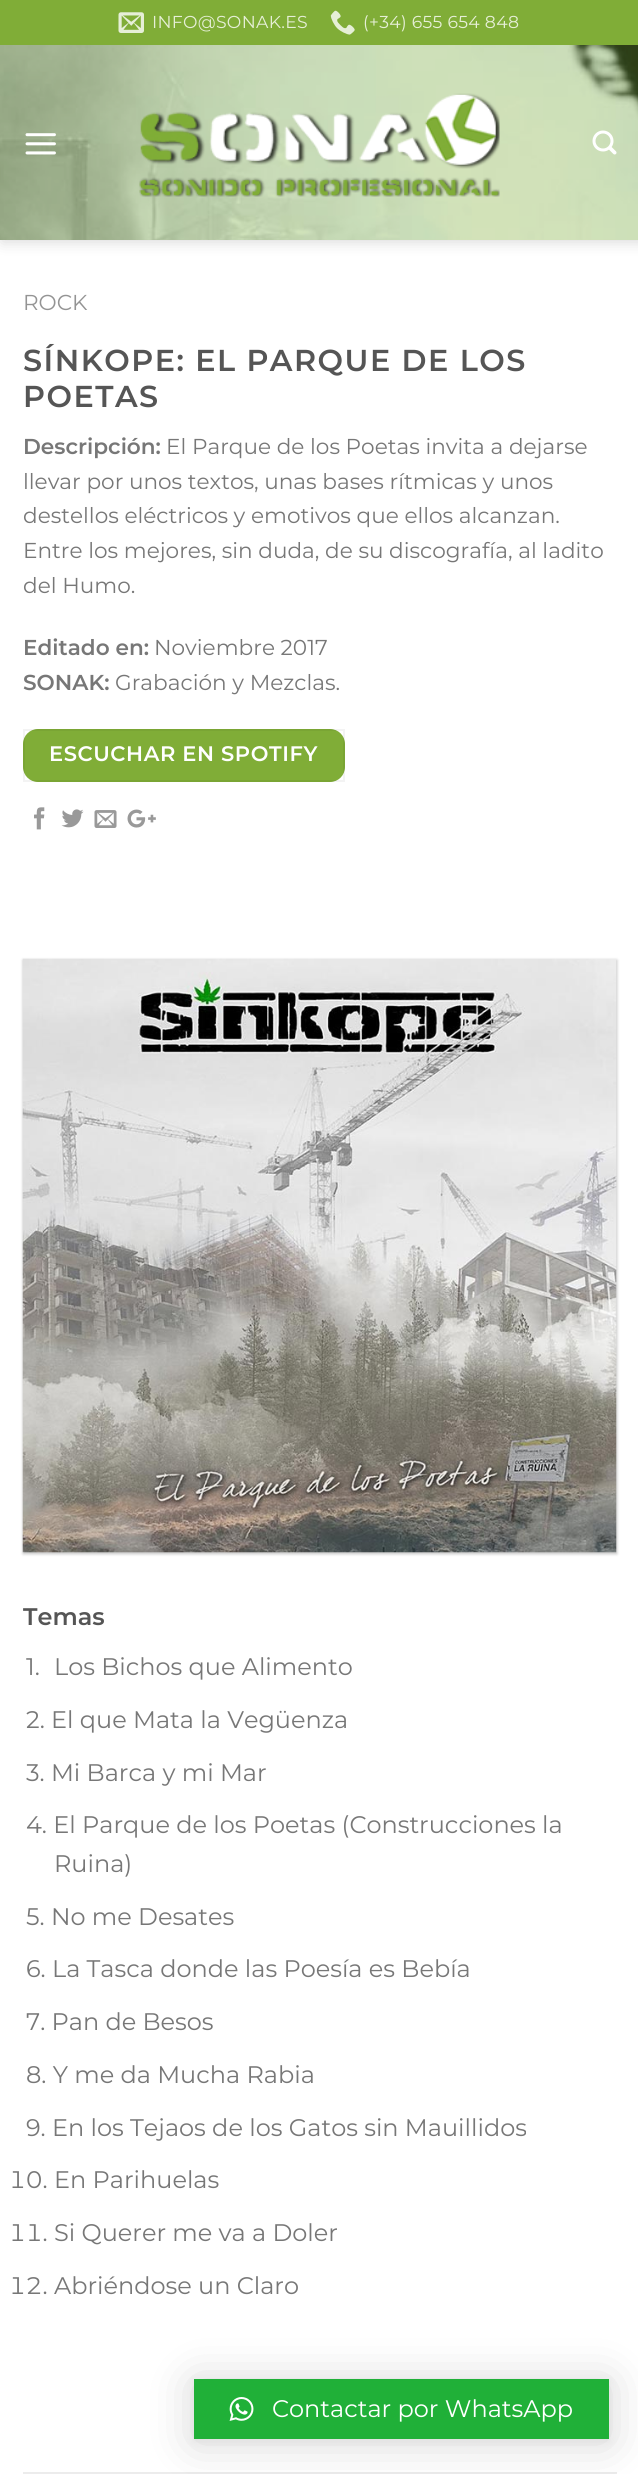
import math
import cairo



def draw_spaced(context, x, y, s, letter, word):
    context.move_to(x, y)
    for ch in s:
        context.show_text(ch)
        context.rel_move_to(letter + word * (ch == ' '), 0)


def rounded_rect(context, x, y, w, h, r):
    context.new_sub_path()
    for i, (u, v) in enumerate([(x + w - r, y + h - r), (x + r, y + h - r), (x + r, y + r), (x + w - r, y + r)]):
        context.arc(u, v, r, i * math.pi / 2, (i + 1) * math.pi / 2)
    context.close_path()


def draw_shadow(context, x, y, w, h, r, blur, alpha):
    context.push_group_with_content(cairo.Content.ALPHA)
    context.set_operator(cairo.Operator.SOURCE)
    for i in range(15, -16, -2):
        e = blur * i / 6
        if min(w, h) + 2 * e > 0:
            context.set_source_rgba(0, 0, 0, alpha * math.erfc((i - 1) / 8.5) / 2)
            rounded_rect(context, x - e, y - e, w + 2 * e, h + 2 * e, max(0, min(r + e + blur * .6, min(w, h) / 2 + e)))
            context.fill()
    context.mask(context.pop_group())


def draw_image(context, path, x, y, w, h):
    context.save()
    context.set_source_surface(cairo.ImageSurface.create_from_png(path), x, y)
    context.rectangle(x, y, w, h)
    context.fill()
    context.restore()


def draw(context):
    context.set_source_rgb(1, 1, 1)
    context.paint()
    context.set_source_rgb(0, 0, 0)
    draw_shadow(context, 2, 2, 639, 240, 0, 7.5, 0.15)
    context.set_source_rgb(128 / 255, 173 / 255, 55 / 255)
    context.rectangle(0, 0, 638, 45)
    context.fill()
    draw_image(context, "images/1.png", 118, 12, 26, 21)
    draw_image(context, "images/2.png", 330, 10, 25, 25)
    draw_image(context, "images/3.png", 0, 45, 638, 195)
    draw_image(context, "images/4.png", 25, 133, 31, 22)
    draw_image(context, "images/5.png", 139, 93, 361, 104)
    draw_image(context, "images/6.png", 592, 130, 25, 25)
    rounded_rect(context, 23, 729, 322, 53, 15)
    context.fill()
    context.rectangle(24, 730, 320, 51)
    context.set_source_rgba(0, 0, 0, 0.05)
    context.stroke()
    draw_image(context, "images/7.png", 34, 807, 11, 23)
    draw_image(context, "images/8.png", 61, 809, 23, 19)
    draw_image(context, "images/9.png", 94, 810, 23, 18)
    draw_image(context, "images/10.png", 127, 809, 29, 19)
    context.set_source_rgb(0, 0, 0)
    draw_shadow(context, 23, 960, 594, 594, 0, 1.5, 0.24)
    draw_image(context, "images/11.png", 22, 958, 595, 595)
    context.set_source_rgb(236 / 255, 236 / 255, 236 / 255)
    context.rectangle(23, 2472, 594, 2)
    context.fill()
    context.set_source_rgb(0, 0, 0)
    draw_shadow(context, 194, 2382, 415, 60, 0, 24, 0.16)
    draw_shadow(context, 194, 2381, 415, 60, 0, 4.5, 0.06)
    context.set_source_rgb(32 / 255, 176 / 255, 56 / 255)
    context.rectangle(194, 2379, 415, 60)
    context.fill()
    draw_image(context, "images/12.png", 229, 2397, 25, 24)
    context.select_font_face("Montserrat")
    context.set_font_size(17.25)
    context.set_source_rgb(230 / 255, 239 / 255, 215 / 255)
    draw_spaced(context, 152, 28, "INFO@SONAK.ES", 0.3, 0)
    draw_spaced(context, 363, 28, "(+34) 655 654 848", 0.3, 0)
    context.set_font_size(21.6)
    context.set_source_rgb(148 / 255, 148 / 255, 148 / 255)
    context.move_to(23, 310)
    context.show_text("ROCK")
    context.select_font_face("Montserrat SemiBold")
    context.set_font_size(30.25)
    context.set_source_rgb(85 / 255, 85 / 255, 85 / 255)
    draw_spaced(context, 23, 371, "SÍNKOPE: EL PARQUE DE LOS", 1.5, 0)
    draw_spaced(context, 23, 407, "POETAS", 1.5, 0)
    context.set_font_size(21.6)
    context.set_source_rgb(119 / 255, 119 / 255, 119 / 255)
    context.move_to(23, 454)
    context.show_text("Descripción:")
    context.select_font_face("Montserrat")
    context.move_to(166, 454)
    context.show_text("El Parque de los Poetas invita a dejarse")
    context.move_to(23, 489)
    context.show_text("llevar por unos textos, unas bases rítmicas y unos")
    context.move_to(23, 523)
    context.show_text("destellos eléctricos y emotivos que ellos alcanzan.")
    context.move_to(23, 558)
    context.show_text("Entre los mejores, sin duda, de su discografía, al ladito")
    context.move_to(23, 593)
    context.show_text("del Humo.")
    context.select_font_face("Montserrat SemiBold")
    context.move_to(23, 655)
    context.show_text("Editado en:")
    context.select_font_face("Montserrat")
    context.move_to(154, 655)
    context.show_text("Noviembre 2017")
    context.select_font_face("Montserrat SemiBold")
    context.move_to(23, 690)
    context.show_text("SONAK:")
    context.select_font_face("Montserrat")
    context.move_to(115, 690)
    context.show_text("Grabación y Mezclas.")
    context.select_font_face("Montserrat SemiBold")
    context.set_font_size(21)
    context.set_source_rgb(1, 1, 1)
    draw_spaced(context, 49, 761, "ESCUCHAR EN SPOTIFY", 0.6, 0)
    context.set_font_size(24)
    context.set_source_rgb(85 / 255, 85 / 255, 85 / 255)
    context.move_to(23, 1625)
    context.show_text("Temas")
    context.select_font_face("Montserrat")
    context.set_source_rgb(119 / 255, 119 / 255, 119 / 255)
    context.move_to(26, 1675)
    context.show_text("1.")
    context.move_to(54, 1675)
    context.show_text("Los Bichos que Alimento")
    context.move_to(26, 1728)
    context.show_text("2. El que Mata la Vegüenza")
    context.move_to(26, 1781)
    context.show_text("3. Mi Barca y mi Mar")
    context.move_to(26, 1833)
    context.show_text("4. El Parque de los Poetas (Construcciones la")
    context.move_to(54, 1872)
    context.show_text("Ruina)")
    context.move_to(26, 1925)
    context.show_text("5. No me Desates")
    context.move_to(26, 1977)
    context.show_text("6. La Tasca donde las Poesía es Bebía")
    context.move_to(26, 2030)
    context.show_text("7. Pan de Besos")
    context.move_to(26, 2083)
    context.show_text("8. Y me da Mucha Rabia")
    context.move_to(26, 2136)
    context.show_text("9. En los Tejaos de los Gatos sin Mauillidos")
    context.select_font_face("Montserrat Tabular")
    context.move_to(9, 2188)
    context.show_text("10.")
    context.select_font_face("Montserrat")
    context.move_to(54, 2188)
    context.show_text("En Parihuelas")
    context.select_font_face("Montserrat Tabular")
    context.move_to(9, 2241)
    context.show_text("11.")
    context.select_font_face("Montserrat")
    context.move_to(54, 2241)
    context.show_text("Si Querer me va a Doler")
    context.select_font_face("Montserrat Tabular")
    context.move_to(9, 2294)
    context.show_text("12.")
    context.select_font_face("Montserrat")
    context.move_to(54, 2294)
    context.show_text("Abriéndose un Claro")
    context.set_source_rgb(1, 1, 1)
    context.move_to(272, 2417)
    context.show_text("Contactar por WhatsApp")


surface = cairo.ImageSurface(cairo.Format.RGB24, 638, 2474)
context = cairo.Context(surface)
options = cairo.FontOptions()
options.set_hint_metrics(cairo.HintMetrics.OFF)
options.set_hint_style(cairo.HintStyle.NONE)
context.set_font_options(options)
context.set_miter_limit(4)
draw(context)
surface.write_to_png("out.png")
